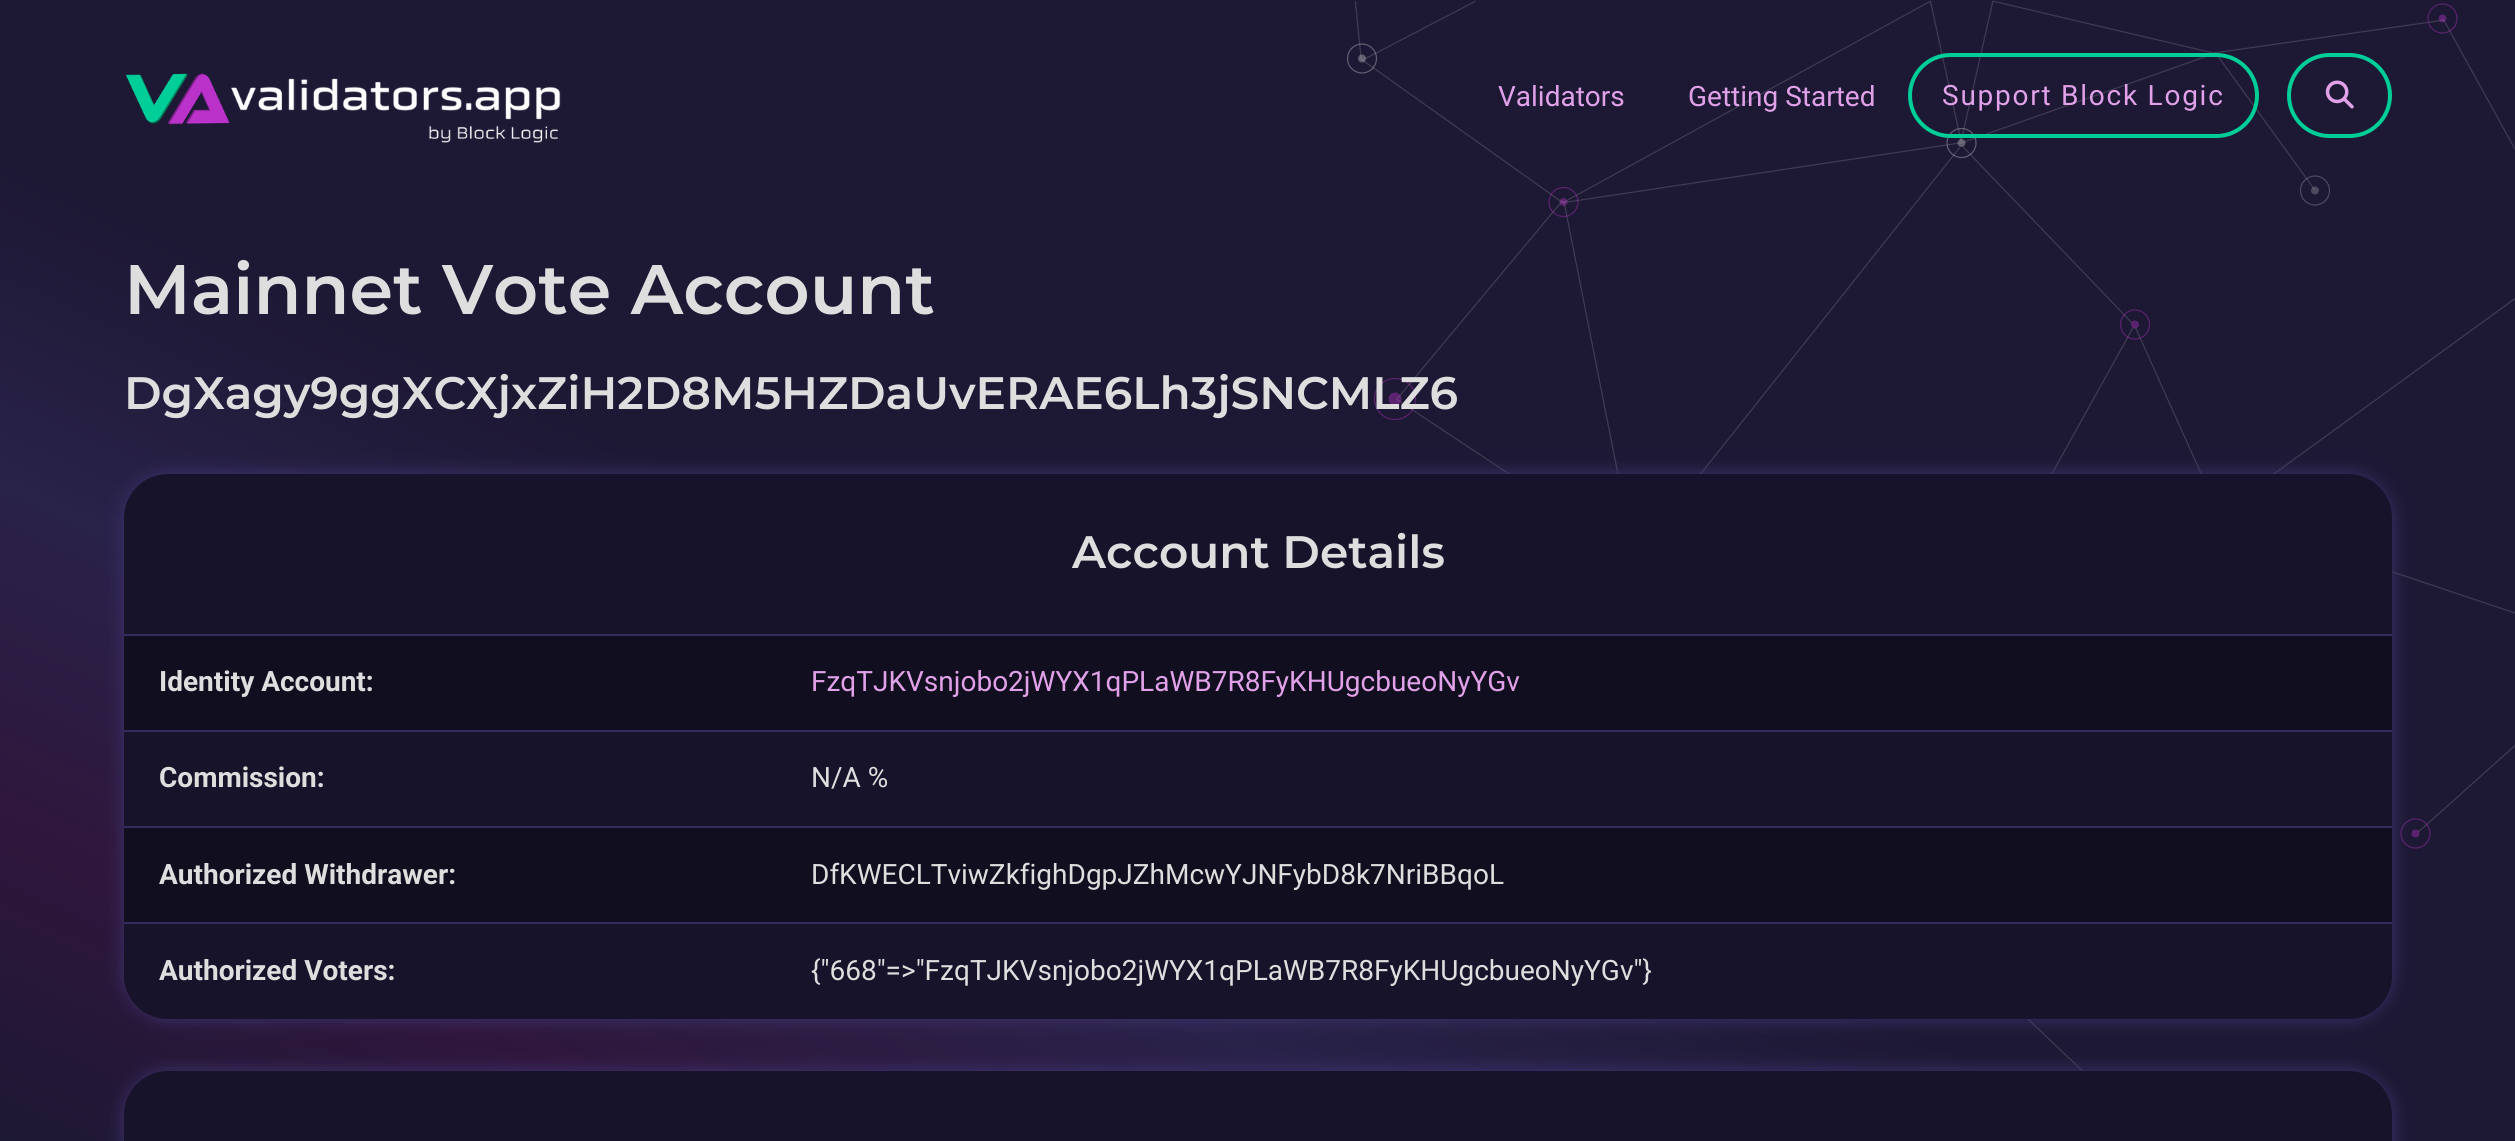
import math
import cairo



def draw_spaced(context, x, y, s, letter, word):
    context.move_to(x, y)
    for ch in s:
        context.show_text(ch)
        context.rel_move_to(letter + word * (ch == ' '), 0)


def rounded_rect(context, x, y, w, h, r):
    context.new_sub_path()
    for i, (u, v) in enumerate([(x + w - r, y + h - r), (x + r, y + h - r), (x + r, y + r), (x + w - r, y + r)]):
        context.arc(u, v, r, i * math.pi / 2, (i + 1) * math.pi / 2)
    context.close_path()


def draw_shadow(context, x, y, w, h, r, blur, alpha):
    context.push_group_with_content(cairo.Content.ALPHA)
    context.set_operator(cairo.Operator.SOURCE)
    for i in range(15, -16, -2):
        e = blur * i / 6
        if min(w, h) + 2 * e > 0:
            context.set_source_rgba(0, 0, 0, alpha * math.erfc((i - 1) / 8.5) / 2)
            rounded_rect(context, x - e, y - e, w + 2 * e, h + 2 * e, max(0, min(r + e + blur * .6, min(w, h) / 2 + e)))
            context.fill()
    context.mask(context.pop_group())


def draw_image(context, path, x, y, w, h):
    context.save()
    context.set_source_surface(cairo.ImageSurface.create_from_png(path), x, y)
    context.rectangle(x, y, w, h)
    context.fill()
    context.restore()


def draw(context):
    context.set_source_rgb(1, 1, 1)
    context.paint()
    gradient = cairo.LinearGradient(1687, -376, 829, 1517)
    gradient.add_color_stop_rgba(0, 29 / 255, 24 / 255, 52 / 255, 1)
    gradient.add_color_stop_rgba(0.57, 29 / 255, 24 / 255, 52 / 255, 1)
    gradient.add_color_stop_rgba(0.71, 41 / 255, 34 / 255, 73 / 255, 1)
    gradient.add_color_stop_rgba(0.86, 47 / 255, 22 / 255, 60 / 255, 1)
    gradient.add_color_stop_rgba(1, 29 / 255, 24 / 255, 52 / 255, 1)
    context.set_source(gradient)
    context.rectangle(0, 0, 2515, 1141)
    context.fill()
    draw_image(context, "images/1.png", 1346, 0, 1169, 1071)
    draw_image(context, "images/2.png", 125, 73, 436, 70)
    rounded_rect(context, 1910, 55, 347, 81, 40.5)
    context.set_source_rgb(0, 206 / 255, 153 / 255)
    context.set_line_width(4)
    context.stroke()
    rounded_rect(context, 2289, 55, 101, 81, 40.5)
    context.stroke()
    draw_image(context, "images/3.png", 2325, 80, 29, 29)
    context.set_source_rgb(62 / 255, 51 / 255, 111 / 255)
    draw_shadow(context, 124, 474, 2268, 545, 44, 9, 1)
    context.set_source_rgb(23 / 255, 19 / 255, 42 / 255)
    rounded_rect(context, 124, 474, 2268, 545, 44)
    context.fill()
    context.set_source_rgb(17 / 255, 14 / 255, 31 / 255)
    context.rectangle(124, 636, 2268, 94)
    context.fill()
    context.set_source_rgb(52 / 255, 43 / 255, 94 / 255)
    context.rectangle(124, 634, 2268, 2)
    context.fill()
    context.rectangle(124, 730, 2268, 2)
    context.fill()
    context.set_source_rgb(17 / 255, 14 / 255, 31 / 255)
    context.rectangle(124, 828, 2268, 94)
    context.fill()
    context.set_source_rgb(52 / 255, 43 / 255, 94 / 255)
    context.rectangle(124, 826, 2268, 2)
    context.fill()
    context.set_source_rgb(23 / 255, 19 / 255, 42 / 255)
    context.new_path()
    context.move_to(124, 922)
    context.line_to(2392, 922)
    context.line_to(2392, 975)
    context.curve_to(2392, 999.5, 2372.5, 1019, 2348, 1019)
    context.line_to(168, 1019)
    context.curve_to(143.5, 1019, 124, 999.5, 124, 975)
    context.close_path()
    context.fill()
    context.set_source_rgb(52 / 255, 43 / 255, 94 / 255)
    context.rectangle(124, 922, 2268, 2)
    context.fill()
    context.set_source_rgb(62 / 255, 51 / 255, 111 / 255)
    draw_shadow(context, 124, 1071, 2268, 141, 44, 9, 1)
    context.set_source_rgb(23 / 255, 19 / 255, 42 / 255)
    rounded_rect(context, 124, 1071, 2268, 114, 44)
    context.fill()
    context.select_font_face("Roboto")
    context.set_font_size(28)
    context.set_source_rgb(224 / 255, 161 / 255, 232 / 255)
    context.move_to(1498, 106)
    context.show_text("Validators")
    context.move_to(1688, 106)
    context.show_text("Getting Started")
    draw_spaced(context, 1942, 105, "Support Block Logic", 1.75, 0)
    context.select_font_face("Montserrat SemiBold")
    context.set_font_size(70)
    context.set_source_rgb(222 / 255, 222 / 255, 222 / 255)
    context.move_to(124, 314)
    context.show_text("Mainnet Vote Account")
    context.set_font_size(45.5)
    context.move_to(124, 409)
    context.show_text("DgXagy9ggXCXjxZiH2D8M5HZDaUvERAE6Lh3jSNCMLZ6")
    context.move_to(1072, 568)
    context.show_text("Account Details")
    context.select_font_face("Roboto", cairo.FontSlant.NORMAL, cairo.FontWeight.BOLD)
    context.set_font_size(28)
    context.move_to(159, 691)
    context.show_text("Identity Account:")
    context.select_font_face("Roboto")
    context.set_source_rgb(224 / 255, 161 / 255, 232 / 255)
    context.move_to(811, 691)
    context.show_text("FzqTJKVsnjobo2jWYX1qPLaWB7R8FyKHUgcbueoNyYGv")
    context.select_font_face("Roboto", cairo.FontSlant.NORMAL, cairo.FontWeight.BOLD)
    context.set_source_rgb(222 / 255, 222 / 255, 222 / 255)
    context.move_to(159, 787)
    context.show_text("Commission:")
    context.select_font_face("Roboto")
    context.move_to(811, 787)
    context.show_text("N/A %")
    context.select_font_face("Roboto", cairo.FontSlant.NORMAL, cairo.FontWeight.BOLD)
    context.move_to(159, 884)
    context.show_text("Authorized Withdrawer:")
    context.select_font_face("Roboto")
    context.move_to(811, 884)
    context.show_text("DfKWECLTviwZkfighDgpJZhMcwYJNFybD8k7NriBBqoL")
    context.select_font_face("Roboto", cairo.FontSlant.NORMAL, cairo.FontWeight.BOLD)
    context.move_to(159, 980)
    context.show_text("Authorized Voters:")
    context.select_font_face("Roboto")
    context.move_to(811, 980)
    context.show_text("{\"668\"=>\"FzqTJKVsnjobo2jWYX1qPLaWB7R8FyKHUgcbueoNyYGv\"}")


surface = cairo.ImageSurface(cairo.Format.RGB24, 2515, 1141)
context = cairo.Context(surface)
options = cairo.FontOptions()
options.set_hint_metrics(cairo.HintMetrics.OFF)
options.set_hint_style(cairo.HintStyle.NONE)
context.set_font_options(options)
context.set_miter_limit(4)
draw(context)
surface.write_to_png("out.png")
